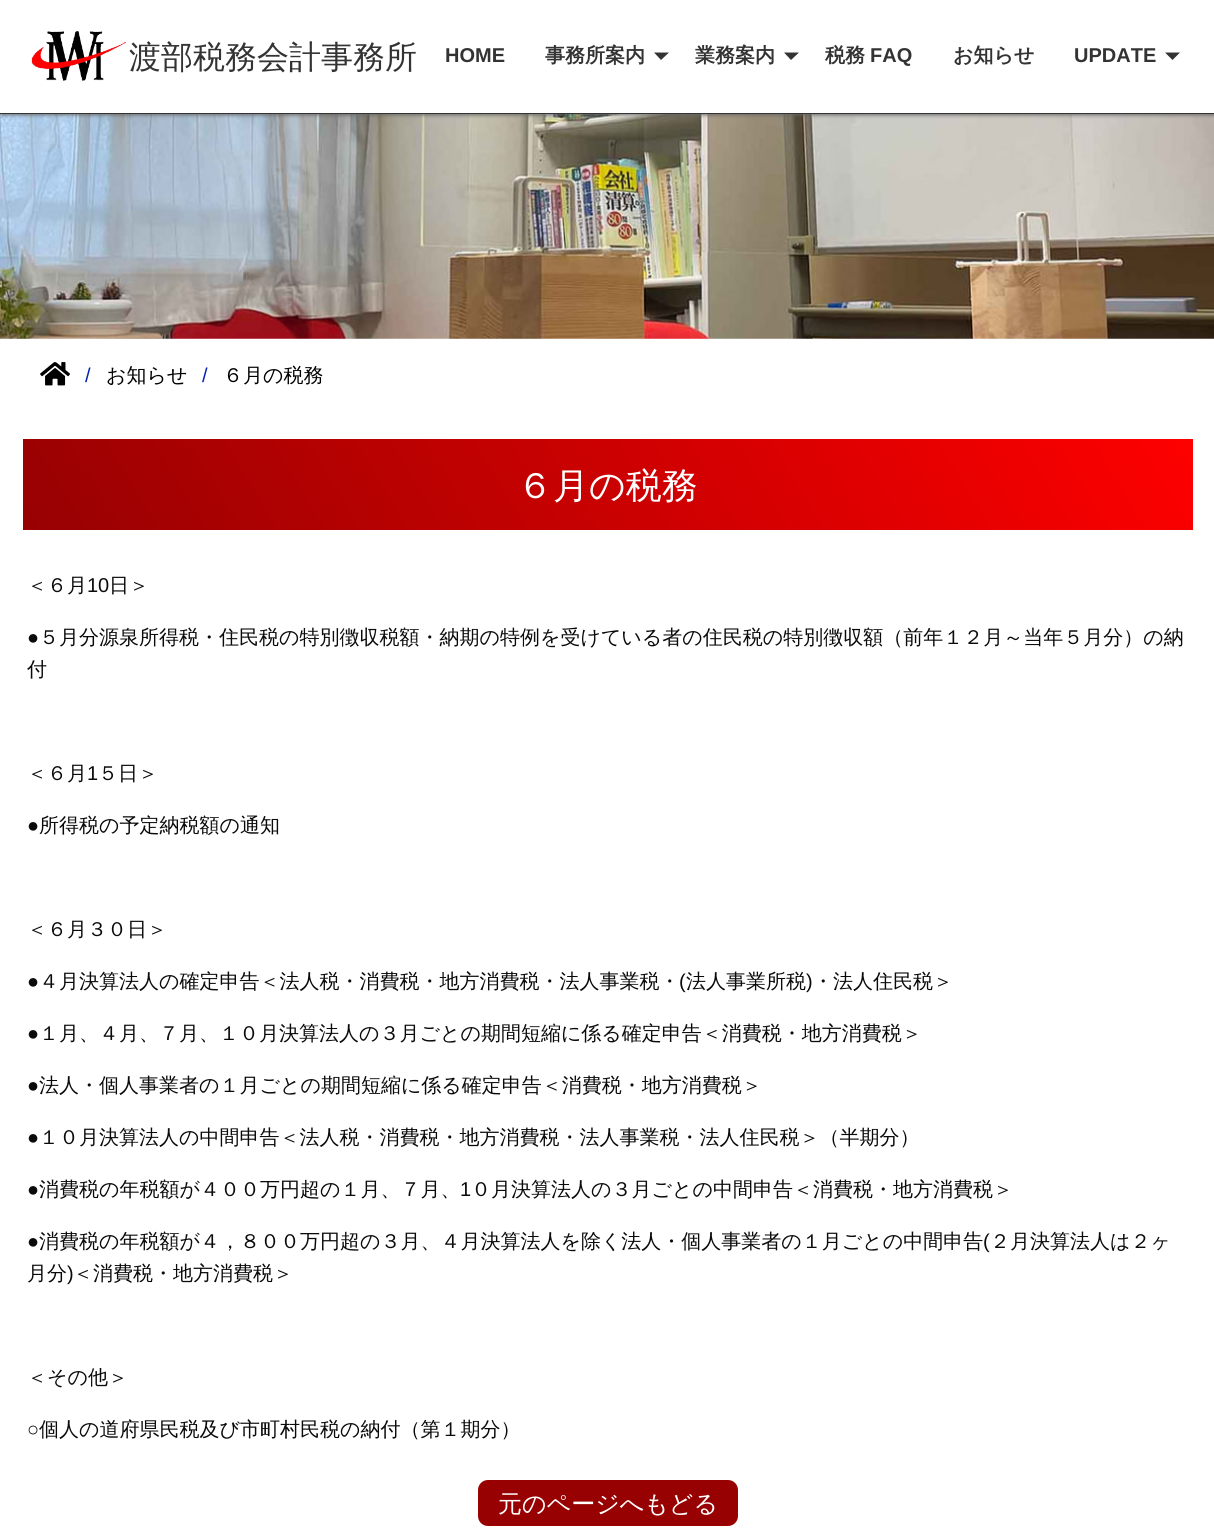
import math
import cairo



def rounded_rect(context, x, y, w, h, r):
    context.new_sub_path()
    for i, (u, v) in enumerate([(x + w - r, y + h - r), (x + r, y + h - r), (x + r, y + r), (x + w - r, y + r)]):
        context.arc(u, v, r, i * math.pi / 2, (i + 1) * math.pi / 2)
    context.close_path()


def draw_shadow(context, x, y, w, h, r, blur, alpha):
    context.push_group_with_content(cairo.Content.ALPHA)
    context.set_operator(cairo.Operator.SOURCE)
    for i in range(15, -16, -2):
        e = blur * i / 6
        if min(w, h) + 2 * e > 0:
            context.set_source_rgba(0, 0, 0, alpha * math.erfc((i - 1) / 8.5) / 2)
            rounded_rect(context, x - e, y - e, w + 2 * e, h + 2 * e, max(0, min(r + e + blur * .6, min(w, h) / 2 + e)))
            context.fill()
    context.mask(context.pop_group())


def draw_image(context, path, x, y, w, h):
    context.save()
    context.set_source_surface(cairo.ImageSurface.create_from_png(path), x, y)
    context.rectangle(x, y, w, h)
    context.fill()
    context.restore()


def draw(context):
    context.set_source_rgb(1, 1, 1)
    context.paint()
    draw_image(context, "images/2.png", 0, 114, 1214, 225)
    context.set_source_rgb(102 / 255, 102 / 255, 102 / 255)
    draw_shadow(context, 1, 1, 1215, 114, 0, 2, 1)
    context.set_source_rgb(1, 1, 1)
    context.rectangle(0, 0, 1214, 113)
    context.fill()
    context.set_source_rgb(51 / 255, 51 / 255, 51 / 255)
    context.rectangle(0, 113, 1214, 1)
    context.fill()
    draw_image(context, "images/1.png", 31, 31, 95, 50)
    context.new_path()
    context.move_to(654, 52.5)
    context.line_to(669, 52.5)
    context.line_to(661, 60)
    context.close_path()
    context.fill()
    context.new_path()
    context.move_to(784, 52.5)
    context.line_to(799, 52.5)
    context.line_to(791, 60)
    context.close_path()
    context.fill()
    context.new_path()
    context.move_to(1165, 52.5)
    context.line_to(1180, 52.5)
    context.line_to(1172.5, 60)
    context.close_path()
    context.fill()
    draw_image(context, "images/3.png", 40, 362, 30, 24)
    gradient = cairo.LinearGradient(1057, 214, 158, 755)
    gradient.add_color_stop_rgba(0, 254 / 255, 0, 0, 1)
    gradient.add_color_stop_rgba(1, 151 / 255, 1 / 255, 2 / 255, 1)
    context.set_source(gradient)
    context.rectangle(23, 439, 1170, 91)
    context.fill()
    context.set_source_rgb(151 / 255, 1 / 255, 2 / 255)
    rounded_rect(context, 478, 1480, 260, 46, 10)
    context.fill()
    context.select_font_face("WenQuanYi Zen Hei Medium")
    context.set_font_size(32)
    context.set_source_rgb(51 / 255, 51 / 255, 51 / 255)
    context.move_to(129, 68)
    context.show_text("渡部税務会計事務所")
    context.select_font_face("Liberation Sans", cairo.FontSlant.NORMAL, cairo.FontWeight.BOLD)
    context.set_font_size(20)
    context.move_to(445, 62)
    context.show_text("HOME")
    context.select_font_face("WenQuanYi Zen Hei", cairo.FontSlant.NORMAL, cairo.FontWeight.BOLD)
    context.move_to(545, 62)
    context.show_text("事務所案内")
    context.move_to(695, 62)
    context.show_text("業務案内")
    context.move_to(825, 62)
    context.show_text("税務")
    context.select_font_face("Liberation Sans", cairo.FontSlant.NORMAL, cairo.FontWeight.BOLD)
    context.move_to(870, 62)
    context.show_text("FAQ")
    context.select_font_face("WenQuanYi Zen Hei", cairo.FontSlant.NORMAL, cairo.FontWeight.BOLD)
    context.move_to(953, 62)
    context.show_text("お知らせ")
    context.select_font_face("Liberation Sans", cairo.FontSlant.NORMAL, cairo.FontWeight.BOLD)
    context.move_to(1074, 62)
    context.show_text("UPDATE")
    context.select_font_face("Liberation Sans")
    context.set_source_rgb(7 / 255, 32 / 255, 179 / 255)
    context.move_to(85, 382)
    context.show_text("/")
    context.select_font_face("WenQuanYi Zen Hei Medium")
    context.set_source_rgb(0, 0, 0)
    context.move_to(106, 382)
    context.show_text("お知らせ")
    context.select_font_face("Liberation Sans")
    context.set_source_rgb(7 / 255, 32 / 255, 179 / 255)
    context.move_to(202, 382)
    context.show_text("/")
    context.select_font_face("WenQuanYi Zen Hei Medium")
    context.set_source_rgb(0, 0, 0)
    context.move_to(223, 382)
    context.show_text("６月の税務")
    context.set_font_size(36)
    context.set_source_rgb(1, 1, 1)
    context.move_to(517, 498)
    context.show_text("６月の税務")
    context.set_font_size(20)
    context.set_source_rgb(10 / 255, 10 / 255, 10 / 255)
    context.move_to(27, 592)
    context.show_text("＜６月")
    context.select_font_face("Liberation Sans")
    context.move_to(87, 592)
    context.show_text("10")
    context.select_font_face("WenQuanYi Zen Hei Medium")
    context.move_to(109, 592)
    context.show_text("日＞")
    context.select_font_face("Liberation Sans")
    context.move_to(27, 644)
    context.show_text("●")
    context.select_font_face("WenQuanYi Zen Hei Medium")
    context.move_to(39, 644)
    context.show_text("５月分源泉所得税・住民税の特別徴収税額・納期の特例を受けている者の住民税の特別徴収額（前年１２月～当年５月分）の納")
    context.move_to(27, 676)
    context.show_text("付")
    context.move_to(27, 780)
    context.show_text("＜６月")
    context.select_font_face("Liberation Sans")
    context.move_to(87, 780)
    context.show_text("1")
    context.select_font_face("WenQuanYi Zen Hei Medium")
    context.move_to(98, 780)
    context.show_text("５日＞")
    context.select_font_face("Liberation Sans")
    context.move_to(27, 832)
    context.show_text("●")
    context.select_font_face("WenQuanYi Zen Hei Medium")
    context.move_to(39, 832)
    context.show_text("所得税の予定納税額の通知")
    context.move_to(27, 936)
    context.show_text("＜６月３０日＞")
    context.select_font_face("Liberation Sans")
    context.move_to(27, 988)
    context.show_text("●")
    context.select_font_face("WenQuanYi Zen Hei Medium")
    context.move_to(39, 988)
    context.show_text("４月決算法人の確定申告＜法人税・消費税・地方消費税・法人事業税・")
    context.select_font_face("Liberation Sans")
    context.move_to(679, 988)
    context.show_text("(")
    context.select_font_face("WenQuanYi Zen Hei Medium")
    context.move_to(686, 988)
    context.show_text("法人事業所税")
    context.select_font_face("Liberation Sans")
    context.move_to(806, 988)
    context.show_text(")")
    context.select_font_face("WenQuanYi Zen Hei Medium")
    context.move_to(813, 988)
    context.show_text("・法人住民税＞")
    context.select_font_face("Liberation Sans")
    context.move_to(27, 1040)
    context.show_text("●")
    context.select_font_face("WenQuanYi Zen Hei Medium")
    context.move_to(39, 1040)
    context.show_text("１月、４月、７月、１０月決算法人の３月ごとの期間短縮に係る確定申告＜消費税・地方消費税＞")
    context.select_font_face("Liberation Sans")
    context.move_to(27, 1092)
    context.show_text("●")
    context.select_font_face("WenQuanYi Zen Hei Medium")
    context.move_to(39, 1092)
    context.show_text("法人・個人事業者の１月ごとの期間短縮に係る確定申告＜消費税・地方消費税＞")
    context.select_font_face("Liberation Sans")
    context.move_to(27, 1144)
    context.show_text("●")
    context.select_font_face("WenQuanYi Zen Hei Medium")
    context.move_to(39, 1144)
    context.show_text("１０月決算法人の中間申告＜法人税・消費税・地方消費税・法人事業税・法人住民税＞（半期分）")
    context.select_font_face("Liberation Sans")
    context.move_to(27, 1196)
    context.show_text("●")
    context.select_font_face("WenQuanYi Zen Hei Medium")
    context.move_to(39, 1196)
    context.show_text("消費税の年税額が４００万円超の１月、７月、")
    context.select_font_face("Liberation Sans")
    context.move_to(460, 1196)
    context.show_text("1")
    context.select_font_face("WenQuanYi Zen Hei Medium")
    context.move_to(471, 1196)
    context.show_text("０月決算法人の３月ごとの中間申告＜消費税・地方消費税＞")
    context.select_font_face("Liberation Sans")
    context.move_to(27, 1248)
    context.show_text("●")
    context.select_font_face("WenQuanYi Zen Hei Medium")
    context.move_to(39, 1248)
    context.show_text("消費税の年税額が４，８００万円超の３月、４月決算法人を除く法人・個人事業者の１月ごとの中間申告")
    context.select_font_face("Liberation Sans")
    context.move_to(983, 1248)
    context.show_text("(")
    context.select_font_face("WenQuanYi Zen Hei Medium")
    context.move_to(990, 1248)
    context.show_text("２月決算法人は２ヶ")
    context.move_to(27, 1280)
    context.show_text("月分")
    context.select_font_face("Liberation Sans")
    context.move_to(67, 1280)
    context.show_text(")")
    context.select_font_face("WenQuanYi Zen Hei Medium")
    context.move_to(73, 1280)
    context.show_text("＜消費税・地方消費税＞")
    context.move_to(27, 1384)
    context.show_text("＜その他＞")
    context.select_font_face("Liberation Sans")
    context.move_to(27, 1436)
    context.show_text("○")
    context.select_font_face("WenQuanYi Zen Hei Medium")
    context.move_to(39, 1436)
    context.show_text("個人の道府県民税及び市町村民税の納付（第１期分）")
    context.set_font_size(24)
    context.set_source_rgb(1, 1, 1)
    context.move_to(498, 1512)
    context.show_text("元のページへもどる")


surface = cairo.ImageSurface(cairo.Format.RGB24, 1214, 1536)
context = cairo.Context(surface)
options = cairo.FontOptions()
options.set_hint_metrics(cairo.HintMetrics.OFF)
options.set_hint_style(cairo.HintStyle.NONE)
context.set_font_options(options)
context.set_miter_limit(4)
draw(context)
surface.write_to_png("out.png")
